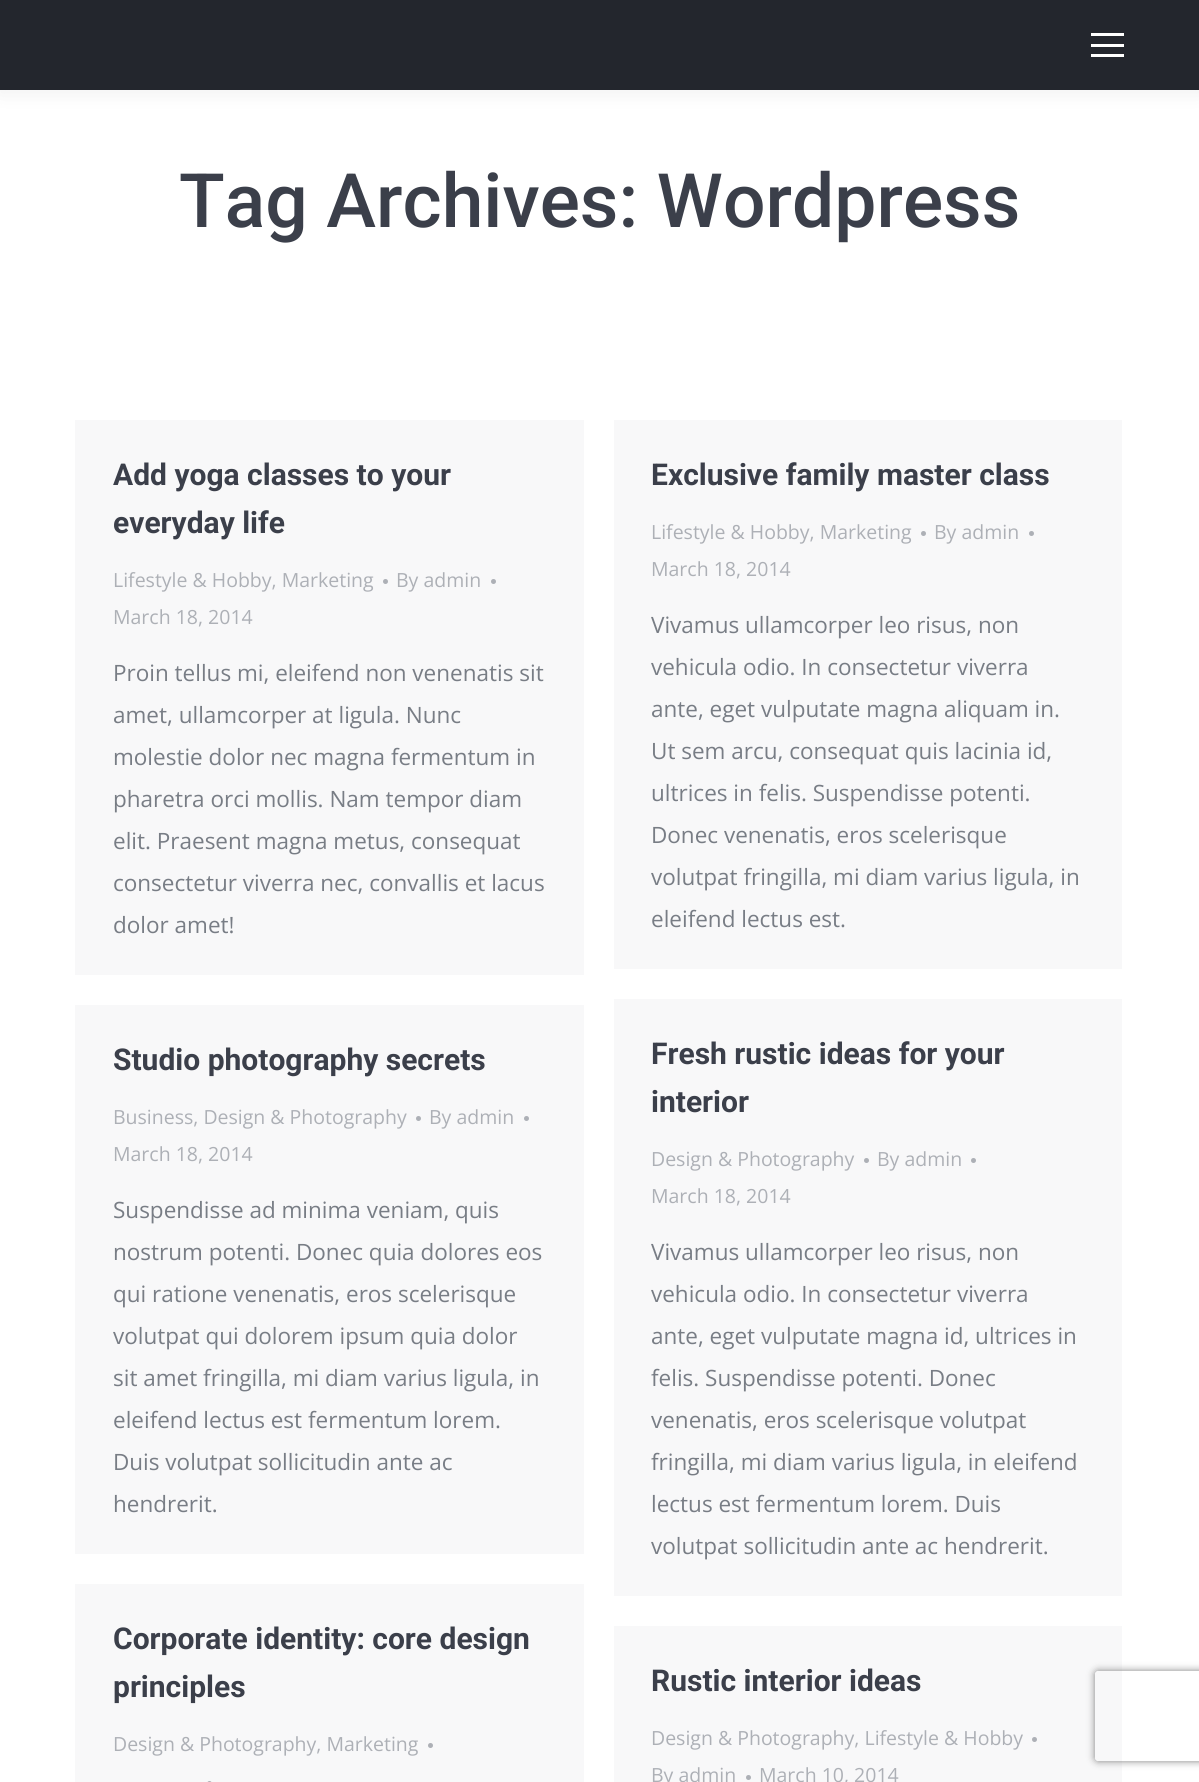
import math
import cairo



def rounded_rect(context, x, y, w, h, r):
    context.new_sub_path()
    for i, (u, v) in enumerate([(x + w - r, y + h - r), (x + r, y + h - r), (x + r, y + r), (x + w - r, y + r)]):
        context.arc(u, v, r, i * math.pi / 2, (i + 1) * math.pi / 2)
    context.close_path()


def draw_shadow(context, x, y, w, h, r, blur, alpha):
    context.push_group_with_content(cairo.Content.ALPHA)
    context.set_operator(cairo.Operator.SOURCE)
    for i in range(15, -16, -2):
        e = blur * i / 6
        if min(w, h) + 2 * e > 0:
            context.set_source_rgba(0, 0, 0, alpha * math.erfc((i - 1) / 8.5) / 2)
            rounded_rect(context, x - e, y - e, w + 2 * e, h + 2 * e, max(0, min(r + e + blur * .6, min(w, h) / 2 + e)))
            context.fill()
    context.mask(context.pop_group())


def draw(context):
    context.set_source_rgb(1, 1, 1)
    context.paint()
    context.set_source_rgb(0, 0, 0)
    draw_shadow(context, -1, -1, 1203, 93, 0, 11, 0.07)
    context.set_source_rgb(35 / 255, 38 / 255, 45 / 255)
    context.rectangle(0, 0, 1199, 90)
    context.fill()
    context.set_source_rgb(1, 1, 1)
    context.rectangle(1091, 33, 33, 3)
    context.fill()
    context.rectangle(1091, 44, 33, 3)
    context.fill()
    context.rectangle(1091, 54, 33, 3)
    context.fill()
    context.set_source_rgb(248 / 255, 248 / 255, 249 / 255)
    context.rectangle(75, 420, 509, 555)
    context.fill()
    context.set_source_rgb(173 / 255, 176 / 255, 182 / 255)
    context.arc(385.5, 581.5, 2.5, 0, 2 * math.pi)
    context.fill()
    context.arc(493.5, 581.5, 2.5, 0, 2 * math.pi)
    context.fill()
    context.set_source_rgb(248 / 255, 248 / 255, 249 / 255)
    context.rectangle(614, 420, 508, 549)
    context.fill()
    context.set_source_rgb(173 / 255, 176 / 255, 182 / 255)
    context.arc(923.5, 533.5, 2.5, 0, 2 * math.pi)
    context.fill()
    context.arc(1031.5, 533.5, 2.5, 0, 2 * math.pi)
    context.fill()
    context.set_source_rgb(248 / 255, 248 / 255, 249 / 255)
    context.rectangle(75, 1005, 509, 549)
    context.fill()
    context.set_source_rgb(173 / 255, 176 / 255, 182 / 255)
    context.arc(418.5, 1118.5, 2.5, 0, 2 * math.pi)
    context.fill()
    context.arc(526.5, 1118.5, 2.5, 0, 2 * math.pi)
    context.fill()
    context.set_source_rgb(248 / 255, 248 / 255, 249 / 255)
    context.rectangle(614, 999, 508, 597)
    context.fill()
    context.set_source_rgb(173 / 255, 176 / 255, 182 / 255)
    context.arc(866.5, 1160.5, 2.5, 0, 2 * math.pi)
    context.fill()
    context.arc(973.5, 1160.5, 2.5, 0, 2 * math.pi)
    context.fill()
    context.set_source_rgb(248 / 255, 248 / 255, 249 / 255)
    context.rectangle(75, 1584, 509, 198)
    context.fill()
    context.set_source_rgb(173 / 255, 176 / 255, 182 / 255)
    context.arc(430.5, 1745.5, 2.5, 0, 2 * math.pi)
    context.fill()
    rounded_rect(context, 207, 1781, 5, 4, 2.5)
    context.fill()
    context.set_source_rgb(248 / 255, 248 / 255, 249 / 255)
    context.rectangle(614, 1626, 508, 156)
    context.fill()
    context.set_source_rgb(173 / 255, 176 / 255, 182 / 255)
    context.arc(1034.5, 1739.5, 2.5, 0, 2 * math.pi)
    context.fill()
    context.arc(748.5, 1777.5, 2.5, 0, 2 * math.pi)
    context.fill()
    context.save()
    context.set_fill_rule(cairo.FillRule.EVEN_ODD)
    context.new_path()
    context.move_to(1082, 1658)
    context.line_to(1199, 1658)
    context.line_to(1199, 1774)
    context.line_to(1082, 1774)
    context.close_path()
    context.move_to(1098, 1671)
    context.line_to(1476, 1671)
    context.curve_to(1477.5, 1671, 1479, 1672.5, 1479, 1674)
    context.line_to(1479, 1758)
    context.curve_to(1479, 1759.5, 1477.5, 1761, 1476, 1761)
    context.line_to(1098, 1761)
    context.curve_to(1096.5, 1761, 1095, 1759.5, 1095, 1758)
    context.line_to(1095, 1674)
    context.curve_to(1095, 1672.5, 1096.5, 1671, 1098, 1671)
    context.close_path()
    context.clip()
    context.set_source_rgb(128 / 255, 128 / 255, 128 / 255)
    draw_shadow(context, 1095, 1671, 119, 90, 3, 4, 1)
    context.restore()
    context.select_font_face("Roboto Medium")
    context.set_font_size(75)
    context.set_source_rgb(59 / 255, 63 / 255, 74 / 255)
    context.move_to(179, 227)
    context.show_text("Tag Archives: Wordpress")
    context.select_font_face("Roboto", cairo.FontSlant.NORMAL, cairo.FontWeight.BOLD)
    context.set_font_size(30)
    context.move_to(113, 485)
    context.show_text("Add yoga classes to your")
    context.move_to(113, 533)
    context.show_text("everyday life")
    context.select_font_face("Open Sans")
    context.set_font_size(19.5)
    context.set_source_rgb(173 / 255, 176 / 255, 182 / 255)
    context.move_to(113, 587)
    context.show_text("Lifestyle & Hobby, Marketing")
    context.move_to(396, 587)
    context.show_text("By admin")
    context.move_to(113, 624)
    context.show_text("March 18, 2014")
    context.set_font_size(22.5)
    context.set_source_rgb(120 / 255, 125 / 255, 133 / 255)
    context.move_to(113, 681)
    context.show_text("Proin tellus mi, eleifend non venenatis sit")
    context.move_to(113, 723)
    context.show_text("amet, ullamcorper at ligula. Nunc")
    context.move_to(113, 765)
    context.show_text("molestie dolor nec magna fermentum in")
    context.move_to(113, 807)
    context.show_text("pharetra orci mollis. Nam tempor diam")
    context.move_to(113, 849)
    context.show_text("elit. Praesent magna metus, consequat")
    context.move_to(113, 891)
    context.show_text("consectetur viverra nec, convallis et lacus")
    context.move_to(113, 933)
    context.show_text("dolor amet!")
    context.select_font_face("Roboto", cairo.FontSlant.NORMAL, cairo.FontWeight.BOLD)
    context.set_font_size(30)
    context.set_source_rgb(59 / 255, 63 / 255, 74 / 255)
    context.move_to(651, 485)
    context.show_text("Exclusive family master class")
    context.select_font_face("Open Sans")
    context.set_font_size(19.5)
    context.set_source_rgb(173 / 255, 176 / 255, 182 / 255)
    context.move_to(651, 539)
    context.show_text("Lifestyle & Hobby, Marketing")
    context.move_to(934, 539)
    context.show_text("By admin")
    context.move_to(651, 576)
    context.show_text("March 18, 2014")
    context.set_font_size(22.5)
    context.set_source_rgb(120 / 255, 125 / 255, 133 / 255)
    context.move_to(651, 633)
    context.show_text("Vivamus ullamcorper leo risus, non")
    context.move_to(651, 675)
    context.show_text("vehicula odio. In consectetur viverra")
    context.move_to(651, 717)
    context.show_text("ante, eget vulputate magna aliquam in.")
    context.move_to(651, 759)
    context.show_text("Ut sem arcu, consequat quis lacinia id,")
    context.move_to(651, 801)
    context.show_text("ultrices in felis. Suspendisse potenti.")
    context.move_to(651, 843)
    context.show_text("Donec venenatis, eros scelerisque")
    context.move_to(651, 885)
    context.show_text("volutpat fringilla, mi diam varius ligula, in")
    context.move_to(651, 927)
    context.show_text("eleifend lectus est.")
    context.select_font_face("Roboto", cairo.FontSlant.NORMAL, cairo.FontWeight.BOLD)
    context.set_font_size(30)
    context.set_source_rgb(59 / 255, 63 / 255, 74 / 255)
    context.move_to(113, 1070)
    context.show_text("Studio photography secrets")
    context.select_font_face("Open Sans")
    context.set_font_size(19.5)
    context.set_source_rgb(173 / 255, 176 / 255, 182 / 255)
    context.move_to(113, 1124)
    context.show_text("Business, Design & Photography")
    context.move_to(429, 1124)
    context.show_text("By admin")
    context.move_to(113, 1161)
    context.show_text("March 18, 2014")
    context.set_font_size(22.5)
    context.set_source_rgb(120 / 255, 125 / 255, 133 / 255)
    context.move_to(113, 1218)
    context.show_text("Suspendisse ad minima veniam, quis")
    context.move_to(113, 1260)
    context.show_text("nostrum potenti. Donec quia dolores eos")
    context.move_to(113, 1302)
    context.show_text("qui ratione venenatis, eros scelerisque")
    context.move_to(113, 1344)
    context.show_text("volutpat qui dolorem ipsum quia dolor")
    context.move_to(113, 1386)
    context.show_text("sit amet fringilla, mi diam varius ligula, in")
    context.move_to(113, 1428)
    context.show_text("eleifend lectus est fermentum lorem.")
    context.move_to(113, 1470)
    context.show_text("Duis volutpat sollicitudin ante ac")
    context.move_to(113, 1512)
    context.show_text("hendrerit.")
    context.select_font_face("Roboto", cairo.FontSlant.NORMAL, cairo.FontWeight.BOLD)
    context.set_font_size(30)
    context.set_source_rgb(59 / 255, 63 / 255, 74 / 255)
    context.move_to(651, 1064)
    context.show_text("Fresh rustic ideas for your")
    context.move_to(651, 1112)
    context.show_text("interior")
    context.select_font_face("Open Sans")
    context.set_font_size(19.5)
    context.set_source_rgb(173 / 255, 176 / 255, 182 / 255)
    context.move_to(651, 1166)
    context.show_text("Design & Photography")
    context.move_to(877, 1166)
    context.show_text("By admin")
    context.move_to(651, 1203)
    context.show_text("March 18, 2014")
    context.set_font_size(22.5)
    context.set_source_rgb(120 / 255, 125 / 255, 133 / 255)
    context.move_to(651, 1260)
    context.show_text("Vivamus ullamcorper leo risus, non")
    context.move_to(651, 1302)
    context.show_text("vehicula odio. In consectetur viverra")
    context.move_to(651, 1344)
    context.show_text("ante, eget vulputate magna id, ultrices in")
    context.move_to(651, 1386)
    context.show_text("felis. Suspendisse potenti. Donec")
    context.move_to(651, 1428)
    context.show_text("venenatis, eros scelerisque volutpat")
    context.move_to(651, 1470)
    context.show_text("fringilla, mi diam varius ligula, in eleifend")
    context.move_to(651, 1512)
    context.show_text("lectus est fermentum lorem. Duis")
    context.move_to(651, 1554)
    context.show_text("volutpat sollicitudin ante ac hendrerit.")
    context.select_font_face("Roboto", cairo.FontSlant.NORMAL, cairo.FontWeight.BOLD)
    context.set_font_size(30)
    context.set_source_rgb(59 / 255, 63 / 255, 74 / 255)
    context.move_to(113, 1649)
    context.show_text("Corporate identity: core design")
    context.move_to(113, 1697)
    context.show_text("principles")
    context.select_font_face("Open Sans")
    context.set_font_size(19.5)
    context.set_source_rgb(173 / 255, 176 / 255, 182 / 255)
    context.move_to(113, 1751)
    context.show_text("Design & Photography, Marketing")
    context.select_font_face("Roboto", cairo.FontSlant.NORMAL, cairo.FontWeight.BOLD)
    context.set_font_size(30)
    context.set_source_rgb(59 / 255, 63 / 255, 74 / 255)
    context.move_to(651, 1691)
    context.show_text("Rustic interior ideas")
    context.select_font_face("Open Sans")
    context.set_font_size(19.5)
    context.set_source_rgb(173 / 255, 176 / 255, 182 / 255)
    context.move_to(651, 1745)
    context.show_text("Design & Photography, Lifestyle & Hobby")
    context.move_to(651, 1782)
    context.show_text("By admin")
    context.move_to(759, 1782)
    context.show_text("March 10, 2014")


surface = cairo.ImageSurface(cairo.Format.RGB24, 1199, 1782)
context = cairo.Context(surface)
options = cairo.FontOptions()
options.set_hint_metrics(cairo.HintMetrics.OFF)
options.set_hint_style(cairo.HintStyle.NONE)
context.set_font_options(options)
context.set_miter_limit(4)
draw(context)
surface.write_to_png("out.png")
